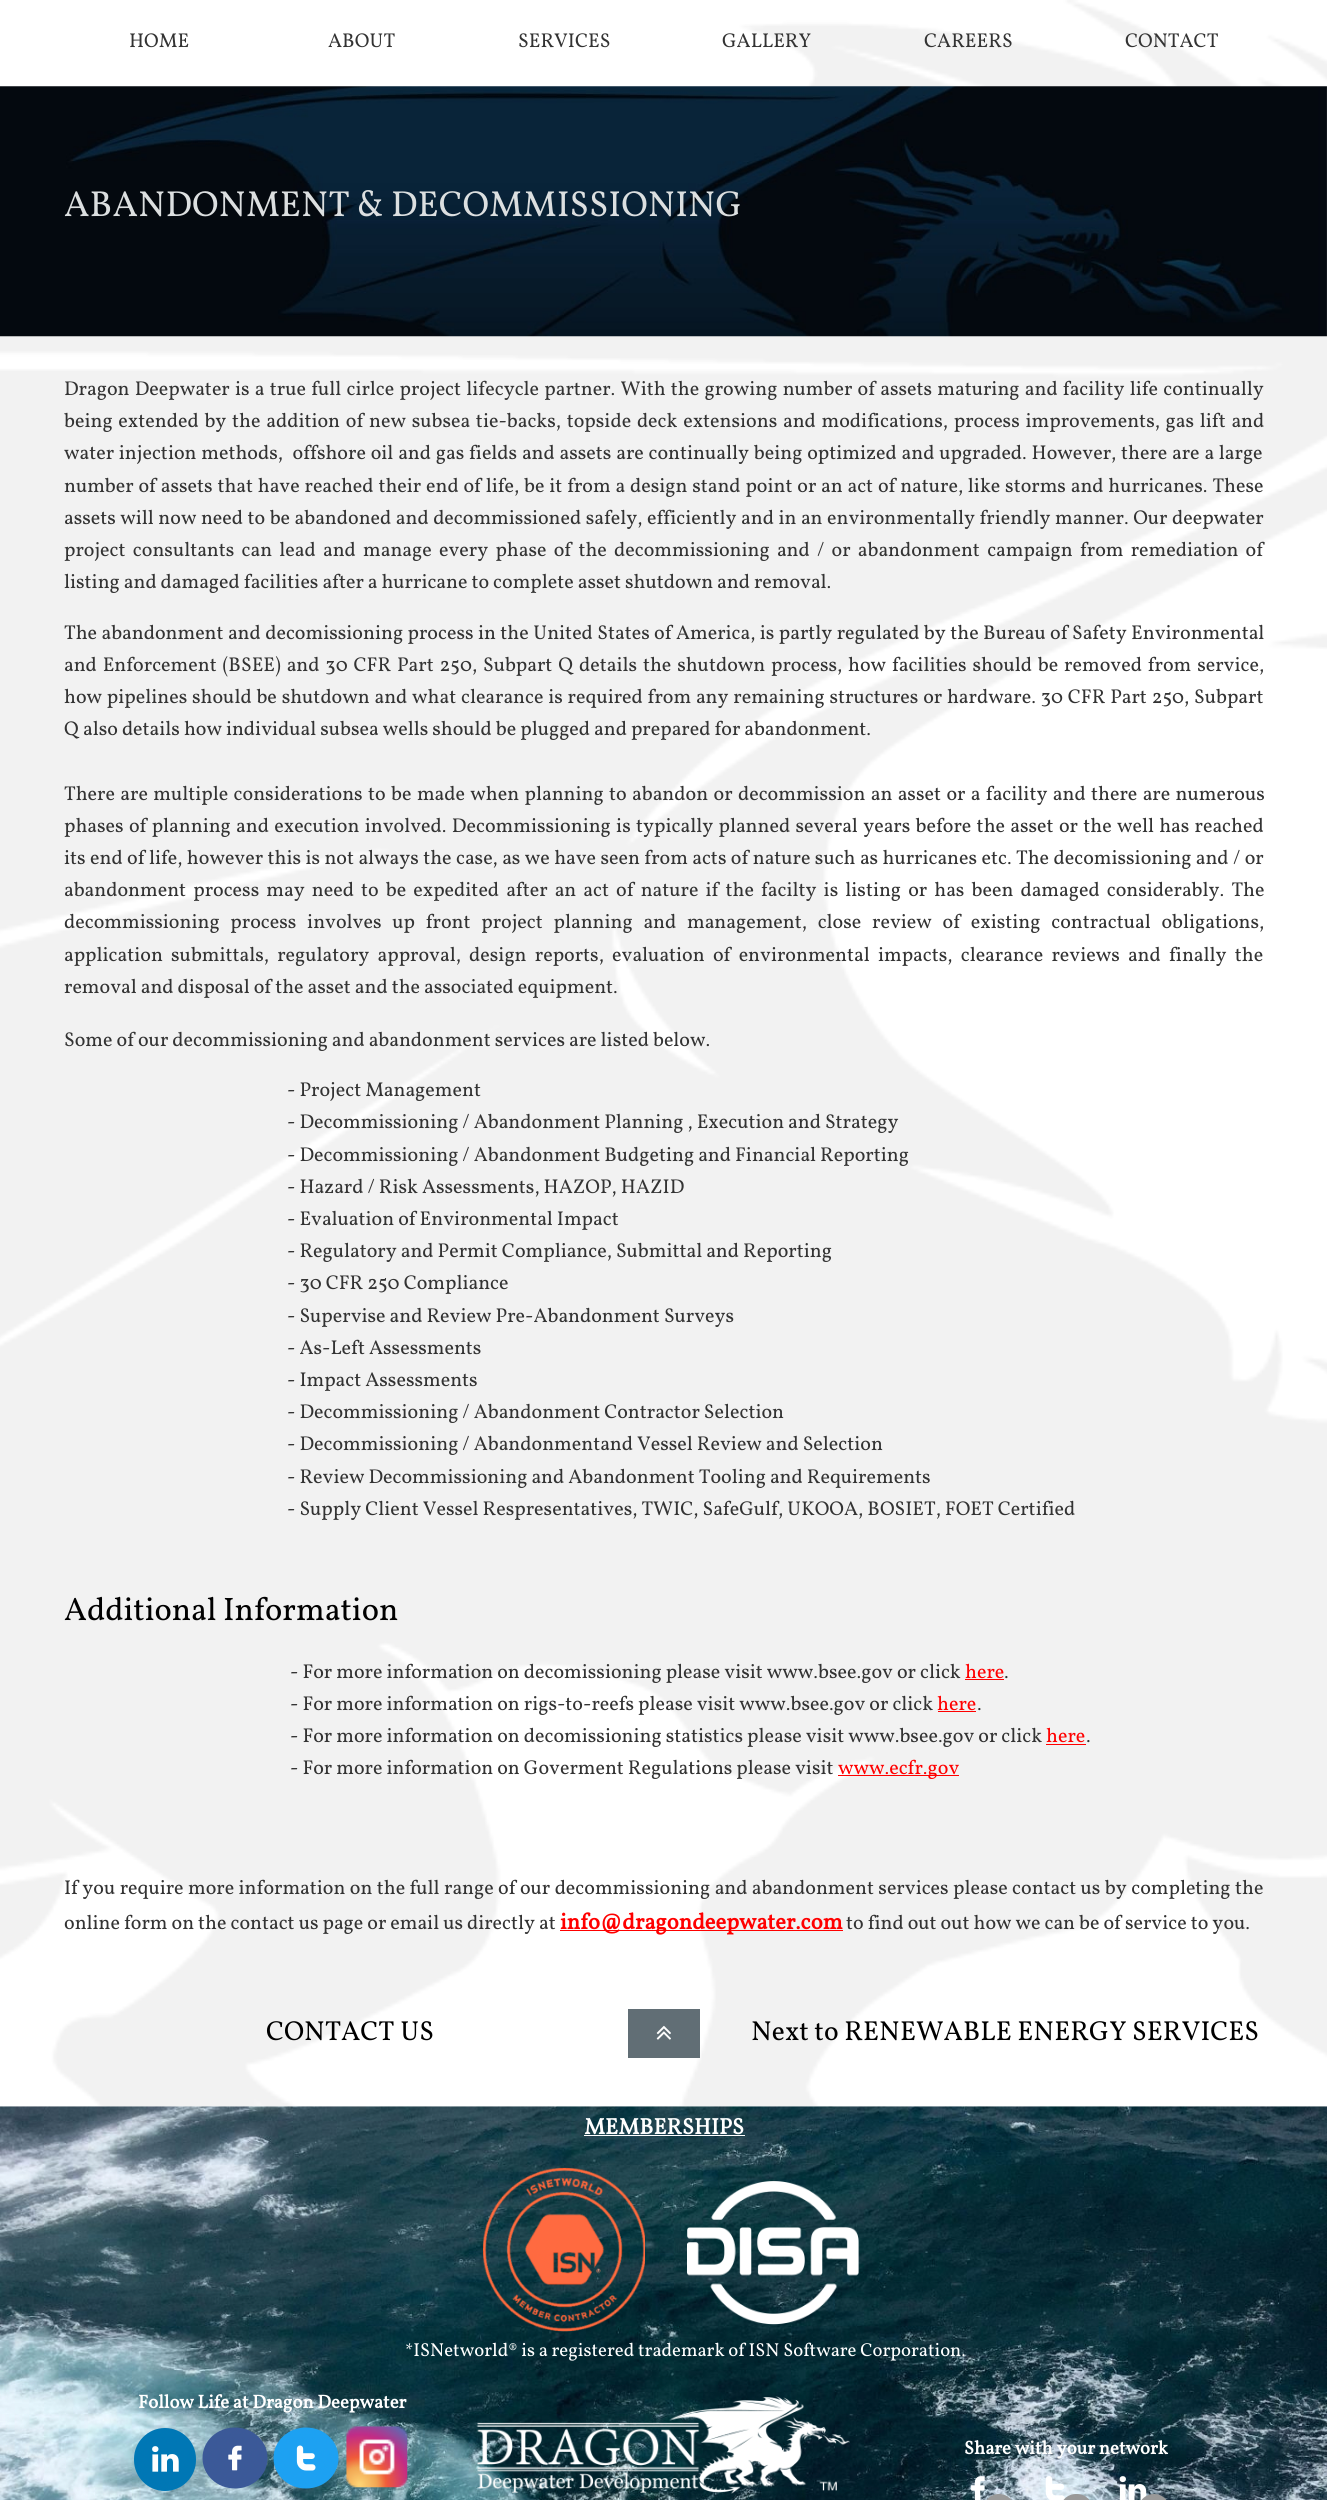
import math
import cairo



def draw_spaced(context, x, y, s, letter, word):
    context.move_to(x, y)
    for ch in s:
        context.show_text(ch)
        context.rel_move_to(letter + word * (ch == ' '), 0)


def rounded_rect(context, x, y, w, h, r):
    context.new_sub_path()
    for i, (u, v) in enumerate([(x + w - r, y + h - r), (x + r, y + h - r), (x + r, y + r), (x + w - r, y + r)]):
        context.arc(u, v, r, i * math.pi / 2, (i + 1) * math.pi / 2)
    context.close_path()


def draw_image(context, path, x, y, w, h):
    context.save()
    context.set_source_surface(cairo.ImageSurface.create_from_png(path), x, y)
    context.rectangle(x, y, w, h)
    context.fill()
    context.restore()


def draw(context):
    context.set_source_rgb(1, 1, 1)
    context.paint()
    draw_image(context, "images/1.png", 0, 0, 1327, 2106)
    draw_image(context, "images/2.png", 0, 86, 1327, 251)
    context.set_source_rgb(1, 0, 0)
    context.rectangle(965, 1679, 39, 1)
    context.fill()
    context.rectangle(938, 1711, 38, 1)
    context.fill()
    context.rectangle(1046, 1744, 40, 1)
    context.fill()
    context.rectangle(838, 1775, 121, 1)
    context.fill()
    context.rectangle(560, 1930, 283, 1)
    context.fill()
    context.set_source_rgb(97 / 255, 110 / 255, 117 / 255)
    context.rectangle(628, 2009, 72, 49)
    context.fill()
    draw_image(context, "images/3.png", 656, 2025, 15, 15)
    draw_image(context, "images/4.png", 0, 2106, 1327, 394)
    context.set_source_rgb(1, 1, 1)
    context.rectangle(584, 2135, 161, 1)
    context.fill()
    draw_image(context, "images/5.png", 483, 2167, 162, 165)
    draw_image(context, "images/6.png", 687, 2181, 172, 144)
    draw_image(context, "images/7.png", 477, 2396, 373, 98)
    context.set_source_rgb(0, 119 / 255, 181 / 255)
    rounded_rect(context, 134, 2428, 62, 63, 31)
    context.fill()
    draw_image(context, "images/8.png", 152, 2446, 27, 26)
    context.set_source_rgb(59 / 255, 89 / 255, 152 / 255)
    context.new_path()
    context.move_to(235, 2427.5)
    context.curve_to(253, 2427.5, 267.5, 2441, 267.5, 2458)
    context.curve_to(267.5, 2475, 253, 2488.5, 235, 2488.5)
    context.curve_to(217, 2488.5, 202.5, 2475, 202.5, 2458)
    context.curve_to(202.5, 2441, 217, 2427.5, 235, 2427.5)
    context.close_path()
    context.fill()
    draw_image(context, "images/9.png", 228, 2445, 14, 26)
    context.set_source_rgb(29 / 255, 161 / 255, 242 / 255)
    context.new_path()
    context.move_to(306, 2427.5)
    context.curve_to(324, 2427.5, 338.5, 2441, 338.5, 2458)
    context.curve_to(338.5, 2475, 324, 2488.5, 306, 2488.5)
    context.curve_to(288, 2488.5, 273.5, 2475, 273.5, 2458)
    context.curve_to(273.5, 2441, 288, 2427.5, 306, 2427.5)
    context.close_path()
    context.fill()
    draw_image(context, "images/10.png", 296, 2445, 20, 26)
    draw_image(context, "images/11.png", 346, 2426, 62, 62)
    draw_image(context, "images/12.png", 971, 2476, 14, 24)
    context.set_source_rgb(153 / 255, 153 / 255, 153 / 255)
    rounded_rect(context, 983, 2494, 32, 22, 16)
    context.fill()
    draw_image(context, "images/13.png", 1045, 2476, 20, 24)
    rounded_rect(context, 1060, 2494, 33, 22, 16)
    context.fill()
    draw_image(context, "images/14.png", 1119, 2476, 28, 24)
    rounded_rect(context, 1138, 2494, 32, 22, 16)
    context.fill()
    context.select_font_face("Vollkorn")
    context.set_font_size(20)
    context.set_source_rgb(51 / 255, 51 / 255, 51 / 255)
    context.move_to(129, 47)
    context.show_text("HOME")
    context.move_to(328, 47)
    context.show_text("ABOUT")
    context.move_to(518, 47)
    context.show_text("SERVICES")
    context.move_to(722, 47)
    context.show_text("GALLERY")
    context.move_to(924, 47)
    context.show_text("CAREERS")
    context.move_to(1125, 47)
    context.show_text("CONTACT")
    context.set_font_size(36.25)
    context.set_source_rgb(220 / 255, 223 / 255, 224 / 255)
    context.move_to(64, 216)
    context.show_text("ABANDONMENT & DECOMMISSIONING")
    context.set_font_size(20)
    context.set_source_rgb(51 / 255, 51 / 255, 51 / 255)
    draw_spaced(context, 64, 395, "Dragon Deepwater is a true full cirlce project lifecycle partner. With the growing number of assets maturing and facility life continually", 0, 1.25)
    draw_spaced(context, 64, 427, "being extended by the addition of new subsea tie-backs, topside deck extensions and modifications, process improvements, gas lift and", 0, 1.75)
    draw_spaced(context, 64, 459, "water injection methods,  offshore oil and gas fields and assets are continually being optimized and upgraded. However, there are a large", 0, 0.8)
    draw_spaced(context, 64, 492, "number of assets that have reached their end of life, be it from a design stand point or an act of nature, like storms and hurricanes. These", 0, 0.8)
    draw_spaced(context, 64, 524, "assets will now need to be abandoned and decommissioned safely, efficiently and in an environmentally friendly manner. Our deepwater", 0, 0.5)
    draw_spaced(context, 64, 556, "project consultants can lead and manage every phase of the decommissioning and / or abandonment campaign from remediation of", 0, 3.25)
    context.move_to(64, 588)
    context.show_text("listing and damaged facilities after a hurricane to complete asset shutdown and removal.")
    draw_spaced(context, 64, 639, "The abandonment and decomissioning process in the United States of America, is partly regulated by the Bureau of Safety Environmental", 0, 0.4)
    draw_spaced(context, 64, 671, "and Enforcement (BSEE) and 30 CFR Part 250, Subpart Q details the shutdown process, how facilities should be removed from service,", 0, 1.85)
    draw_spaced(context, 64, 703, "how pipelines should be shutdown and what clearance is required from any remaining structures or hardware. 30 CFR Part 250, Subpart", 0, 0.8)
    context.move_to(64, 735)
    context.show_text("Q also details how individual subsea wells should be plugged and prepared for abandonment.")
    draw_spaced(context, 64, 800, "There are multiple considerations to be made when planning to abandon or decommission an asset or a facility and there are numerous", 0, 1.4)
    draw_spaced(context, 64, 832, "phases of planning and execution involved. Decommissioning is typically planned several years before the asset or the well has reached", 0, 1.3)
    draw_spaced(context, 64, 864, "its end of life, however this is not always the case, as we have seen from acts of nature such as hurricanes etc. The decomissioning and / or", 0, 0.4)
    draw_spaced(context, 64, 896, "abandonment process may need to be expedited after an act of nature if the facilty is listing or has been damaged considerably. The", 0, 3.1)
    draw_spaced(context, 64, 928, "decommissioning process involves up front project planning and management, close review of existing contractual obligations,", 0, 6.75)
    draw_spaced(context, 64, 961, "application submittals, regulatory approval, design reports, evaluation of environmental impacts, clearance reviews and finally the", 0, 4.25)
    context.move_to(64, 993)
    context.show_text("removal and disposal of the asset and the associated equipment.")
    context.move_to(64, 1046)
    context.show_text("Some of our decommissioning and abandonment services are listed below.")
    context.move_to(287, 1096)
    context.show_text("- Project Management")
    context.move_to(287, 1128)
    context.show_text("- Decommissioning / Abandonment Planning , Execution and Strategy")
    context.move_to(287, 1161)
    context.show_text("- Decommissioning / Abandonment Budgeting and Financial Reporting")
    context.move_to(287, 1193)
    context.show_text("- Hazard / Risk Assessments, HAZOP, HAZID")
    context.move_to(287, 1225)
    context.show_text("- Evaluation of Environmental Impact")
    context.move_to(287, 1257)
    context.show_text("- Regulatory and Permit Compliance, Submittal and Reporting")
    context.move_to(287, 1289)
    context.show_text("- 30 CFR 250 Compliance")
    context.move_to(287, 1322)
    context.show_text("- Supervise and Review Pre-Abandonment Surveys")
    context.move_to(287, 1354)
    context.show_text("- As-Left Assessments")
    context.move_to(287, 1386)
    context.show_text("- Impact Assessments")
    context.move_to(287, 1418)
    context.show_text("- Decommissioning / Abandonment Contractor Selection")
    context.move_to(287, 1450)
    context.show_text("- Decommissioning / Abandonmentand Vessel Review and Selection")
    context.move_to(287, 1483)
    context.show_text("- Review Decommissioning and Abandonment Tooling and Requirements")
    context.move_to(287, 1515)
    context.show_text("- Supply Client Vessel Respresentatives, TWIC, SafeGulf, UKOOA, BOSIET, FOET Certified")
    context.set_font_size(32.5)
    context.set_source_rgb(0, 0, 0)
    context.move_to(64, 1620)
    context.show_text("Additional Information")
    context.set_font_size(20)
    context.set_source_rgb(51 / 255, 51 / 255, 51 / 255)
    context.move_to(290, 1678)
    context.show_text("- For more information on decomissioning please visit www.bsee.gov or click")
    context.set_source_rgb(1, 0, 0)
    context.move_to(965, 1678)
    context.show_text("here")
    context.set_source_rgb(51 / 255, 51 / 255, 51 / 255)
    context.move_to(1004, 1678)
    context.show_text(".")
    context.move_to(290, 1710)
    context.show_text("- For more information on rigs-to-reefs please visit www.bsee.gov or click")
    context.set_source_rgb(1, 0, 0)
    context.move_to(937, 1710)
    context.show_text("here")
    context.set_source_rgb(51 / 255, 51 / 255, 51 / 255)
    context.move_to(977, 1710)
    context.show_text(".")
    context.move_to(290, 1742)
    context.show_text("- For more information on decomissioning statistics please visit www.bsee.gov or click")
    context.set_source_rgb(1, 0, 0)
    context.move_to(1046, 1742)
    context.show_text("here")
    context.set_source_rgb(51 / 255, 51 / 255, 51 / 255)
    context.move_to(1086, 1742)
    context.show_text(".")
    context.move_to(290, 1774)
    context.show_text("- For more information on Goverment Regulations please visit")
    context.set_source_rgb(1, 0, 0)
    context.move_to(838, 1774)
    context.show_text("www.ecfr.gov")
    context.set_source_rgb(51 / 255, 51 / 255, 51 / 255)
    draw_spaced(context, 64, 1894, "If you require more information on the full range of our decommissioning and abandonment services please contact us by completing the", 0, 0.4)
    context.move_to(64, 1929)
    context.show_text("online form on the contact us page or email us directly at")
    context.select_font_face("Vollkorn", cairo.FontSlant.NORMAL, cairo.FontWeight.BOLD)
    context.set_font_size(22.5)
    context.set_source_rgb(1, 0, 0)
    context.move_to(560, 1929)
    context.show_text("info@dragondeepwater.com")
    context.select_font_face("Vollkorn")
    context.set_font_size(20)
    context.set_source_rgb(51 / 255, 51 / 255, 51 / 255)
    context.move_to(846, 1929)
    context.show_text("to find out out how we can be of service to you.")
    context.set_font_size(27.5)
    context.set_source_rgb(0, 0, 0)
    context.move_to(266, 2040)
    context.show_text("CONTACT US")
    context.move_to(751, 2040)
    context.show_text("Next to RENEWABLE ENERGY SERVICES")
    context.select_font_face("Vollkorn", cairo.FontSlant.NORMAL, cairo.FontWeight.BOLD)
    context.set_font_size(22.5)
    context.set_source_rgb(1, 1, 1)
    context.move_to(584, 2134)
    context.show_text("MEMBERSHIPS")
    context.select_font_face("Vollkorn")
    context.set_font_size(18.75)
    context.move_to(405, 2356)
    context.show_text("*ISNetworld® is a registered trademark of ISN Software Corporation.")
    context.select_font_face("Vollkorn", cairo.FontSlant.NORMAL, cairo.FontWeight.BOLD)
    context.move_to(138, 2408)
    context.show_text("Follow Life at Dragon Deepwater")
    context.move_to(964, 2454)
    context.show_text("Share with your network")


surface = cairo.ImageSurface(cairo.Format.RGB24, 1327, 2500)
context = cairo.Context(surface)
options = cairo.FontOptions()
options.set_hint_metrics(cairo.HintMetrics.OFF)
options.set_hint_style(cairo.HintStyle.NONE)
context.set_font_options(options)
context.set_miter_limit(4)
draw(context)
surface.write_to_png("out.png")
